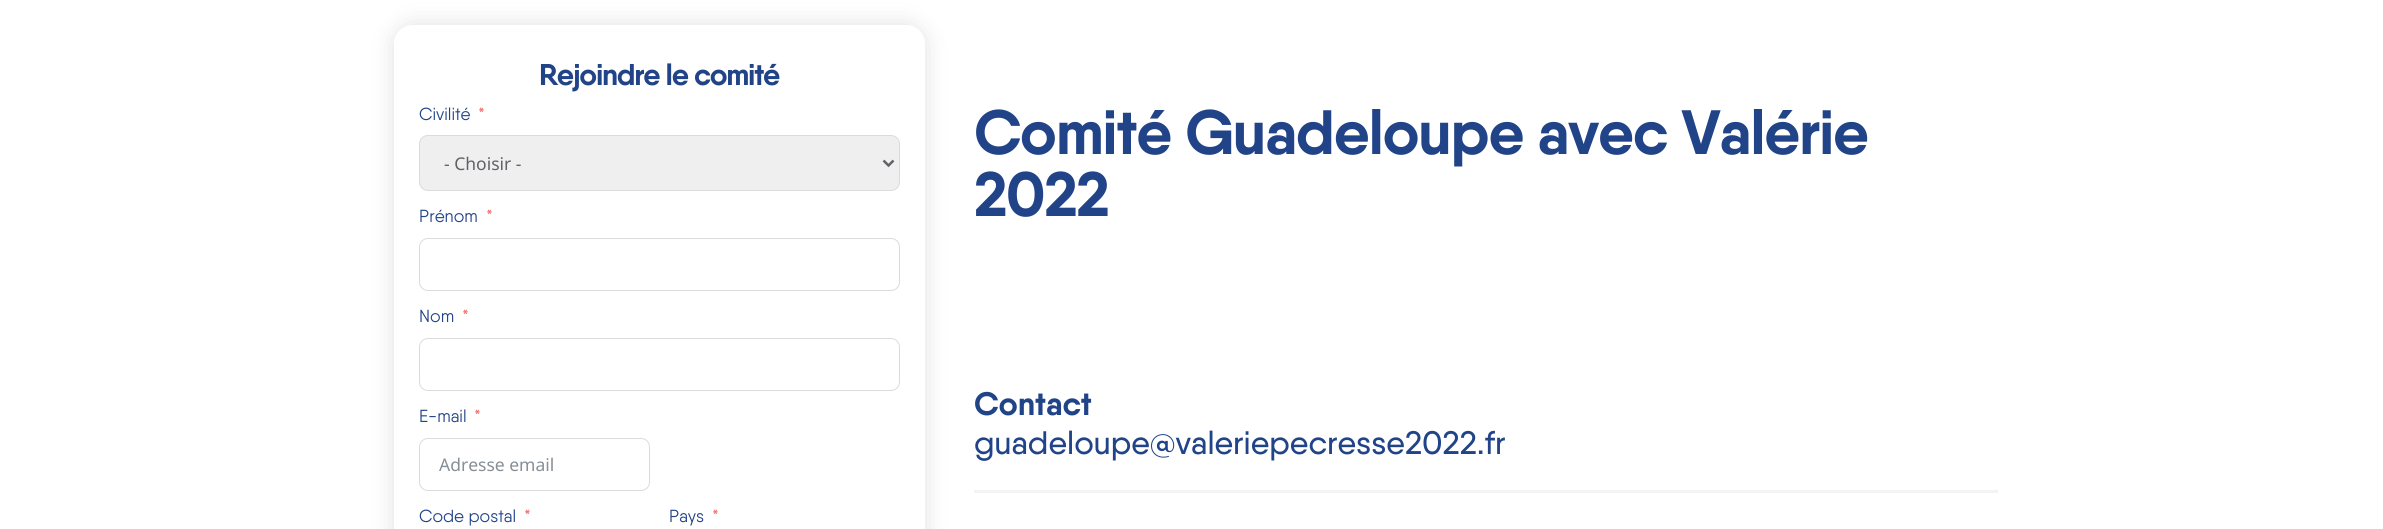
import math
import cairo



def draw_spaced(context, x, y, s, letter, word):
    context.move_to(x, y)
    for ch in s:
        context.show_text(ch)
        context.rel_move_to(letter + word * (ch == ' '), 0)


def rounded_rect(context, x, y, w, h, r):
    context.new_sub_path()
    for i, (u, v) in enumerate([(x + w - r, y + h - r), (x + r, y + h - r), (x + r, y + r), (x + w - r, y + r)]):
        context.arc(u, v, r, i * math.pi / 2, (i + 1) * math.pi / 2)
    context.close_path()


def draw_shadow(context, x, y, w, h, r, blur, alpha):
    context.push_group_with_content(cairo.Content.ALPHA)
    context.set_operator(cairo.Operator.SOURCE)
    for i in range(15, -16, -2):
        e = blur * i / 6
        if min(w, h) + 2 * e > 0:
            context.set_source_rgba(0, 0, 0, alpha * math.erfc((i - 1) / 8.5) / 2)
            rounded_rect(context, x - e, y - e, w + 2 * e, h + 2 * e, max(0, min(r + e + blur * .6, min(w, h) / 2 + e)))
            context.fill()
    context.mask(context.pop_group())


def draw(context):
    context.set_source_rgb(1, 1, 1)
    context.paint()
    context.set_source_rgb(0, 0, 0)
    draw_shadow(context, 394, 25, 531, 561, 19, 12.5, 0.12)
    context.set_source_rgb(1, 1, 1)
    rounded_rect(context, 394, 25, 531, 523, 19)
    context.fill()
    context.set_source_rgb(239 / 255, 239 / 255, 239 / 255)
    rounded_rect(context, 419.5, 135.5, 480, 55, 8.5)
    context.fill_preserve()
    context.set_source_rgb(218 / 255, 219 / 255, 221 / 255)
    context.set_line_width(1)
    context.stroke()
    context.new_path()
    context.move_to(883.5, 160.5)
    context.line_to(888.5, 165.5)
    context.line_to(893.5, 160.5)
    context.set_source_rgb(96 / 255, 98 / 255, 102 / 255)
    context.set_line_width(2.5)
    context.stroke()
    rounded_rect(context, 419.5, 238.5, 480, 52, 8.5)
    context.set_source_rgb(218 / 255, 219 / 255, 221 / 255)
    context.set_line_width(1)
    context.stroke()
    rounded_rect(context, 419.5, 338.5, 480, 52, 8.5)
    context.stroke()
    rounded_rect(context, 419.5, 438.5, 230, 52, 8.5)
    context.stroke()
    context.set_source_rgb(244 / 255, 244 / 255, 244 / 255)
    context.rectangle(974, 490, 1024, 3)
    context.fill()
    context.select_font_face("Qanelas", cairo.FontSlant.NORMAL, cairo.FontWeight.BOLD)
    context.set_font_size(30)
    context.set_source_rgb(33 / 255, 68 / 255, 137 / 255)
    draw_spaced(context, 539, 85, "Rejoindre le comité", -1.25, 0)
    context.select_font_face("Qanelas")
    context.set_font_size(17.5)
    context.move_to(419, 120)
    context.show_text("Civilité")
    context.set_source_rgb(245 / 255, 108 / 255, 108 / 255)
    context.move_to(478, 120)
    context.show_text("*")
    context.select_font_face("Noto Sans")
    context.set_source_rgb(96 / 255, 98 / 255, 102 / 255)
    context.move_to(444, 170)
    context.show_text("- Choisir -")
    context.select_font_face("Qanelas")
    context.set_source_rgb(33 / 255, 68 / 255, 137 / 255)
    context.move_to(419, 222)
    context.show_text("Prénom")
    context.set_source_rgb(245 / 255, 108 / 255, 108 / 255)
    context.move_to(486, 222)
    context.show_text("*")
    context.set_source_rgb(33 / 255, 68 / 255, 137 / 255)
    context.move_to(419, 322)
    context.show_text("Nom")
    context.set_source_rgb(245 / 255, 108 / 255, 108 / 255)
    context.move_to(462, 322)
    context.show_text("*")
    context.set_source_rgb(33 / 255, 68 / 255, 137 / 255)
    context.move_to(419, 422)
    context.show_text("E-mail")
    context.set_source_rgb(245 / 255, 108 / 255, 108 / 255)
    context.move_to(474, 422)
    context.show_text("*")
    context.select_font_face("Noto Sans")
    context.set_source_rgb(134 / 255, 142 / 255, 150 / 255)
    context.move_to(439, 471)
    context.show_text("Adresse email")
    context.select_font_face("Qanelas")
    context.set_source_rgb(33 / 255, 68 / 255, 137 / 255)
    context.move_to(419, 522)
    context.show_text("Code postal")
    context.set_source_rgb(245 / 255, 108 / 255, 108 / 255)
    context.move_to(524, 522)
    context.show_text("*")
    context.set_source_rgb(33 / 255, 68 / 255, 137 / 255)
    context.move_to(669, 522)
    context.show_text("Pays")
    context.set_source_rgb(245 / 255, 108 / 255, 108 / 255)
    context.move_to(712, 522)
    context.show_text("*")
    context.select_font_face("Qanelas", cairo.FontSlant.NORMAL, cairo.FontWeight.BOLD)
    context.set_font_size(62.5)
    context.set_source_rgb(33 / 255, 68 / 255, 137 / 255)
    draw_spaced(context, 974, 154, "Comité Guadeloupe avec Valérie", -1.25, 0)
    draw_spaced(context, 974, 216, "2022", -1.25, 0)
    context.set_font_size(32.5)
    context.move_to(974, 415)
    context.show_text("Contact")
    context.select_font_face("Qanelas Medium")
    context.move_to(974, 454)
    context.show_text("guadeloupe@valeriepecresse2022.fr")


surface = cairo.ImageSurface(cairo.Format.RGB24, 2383, 529)
context = cairo.Context(surface)
options = cairo.FontOptions()
options.set_hint_metrics(cairo.HintMetrics.OFF)
options.set_hint_style(cairo.HintStyle.NONE)
context.set_font_options(options)
context.set_miter_limit(4)
draw(context)
surface.write_to_png("out.png")
